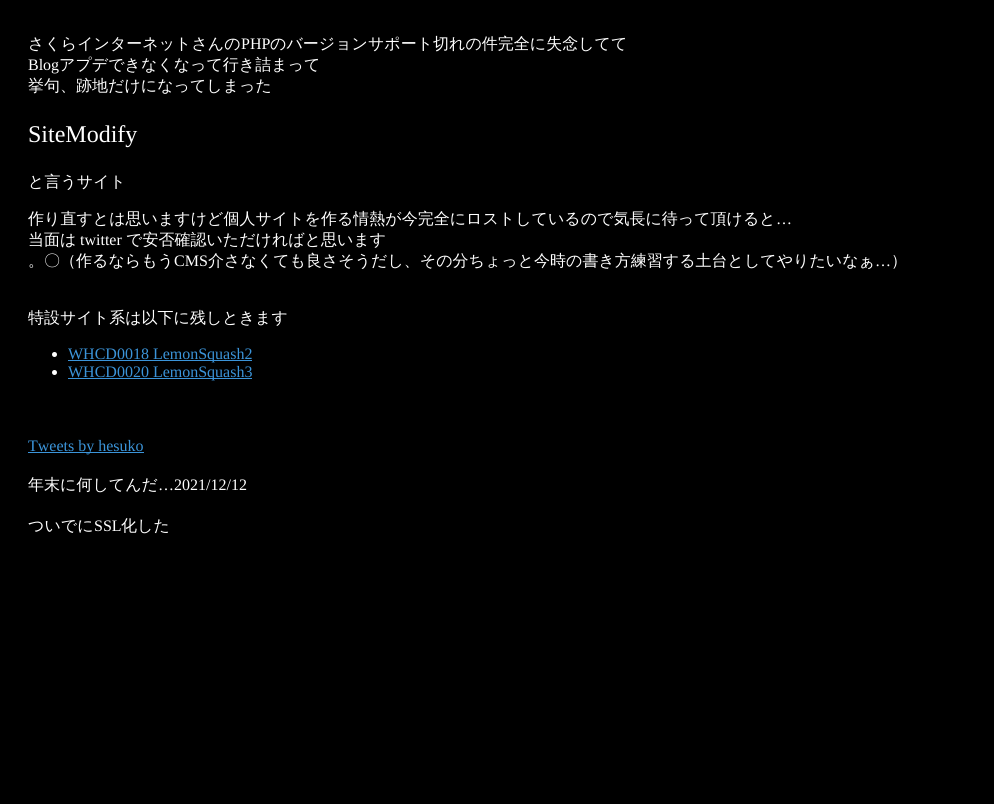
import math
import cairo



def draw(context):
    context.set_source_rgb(0, 0, 0)
    context.paint()
    context.set_source_rgb(1, 1, 1)
    context.arc(54.5, 354.5, 2.5, 0, 2 * math.pi)
    context.fill()
    context.set_source_rgb(59 / 255, 148 / 255, 217 / 255)
    context.rectangle(68, 360, 184, 1)
    context.fill()
    context.set_source_rgb(1, 1, 1)
    context.arc(54.5, 372.5, 2.5, 0, 2 * math.pi)
    context.fill()
    context.set_source_rgb(59 / 255, 148 / 255, 217 / 255)
    context.rectangle(68, 378, 184, 1)
    context.fill()
    context.rectangle(28, 452, 116, 1)
    context.fill()
    context.select_font_face("WenQuanYi Zen Hei Medium")
    context.set_font_size(16)
    context.set_source_rgb(1, 1, 1)
    context.move_to(28, 49)
    context.show_text("さくらインターネットさんの")
    context.select_font_face("Liberation Serif")
    context.move_to(241, 49)
    context.show_text("PHP")
    context.select_font_face("WenQuanYi Zen Hei Medium")
    context.move_to(270, 49)
    context.show_text("のバージョンサポート切れの件完全に失念してて")
    context.select_font_face("Liberation Serif")
    context.move_to(28, 70)
    context.show_text("Blog")
    context.select_font_face("WenQuanYi Zen Hei Medium")
    context.move_to(59, 70)
    context.show_text("アプデできなくなって行き詰まって")
    context.move_to(28, 91)
    context.show_text("挙句、跡地だけになってしまった")
    context.select_font_face("Liberation Serif")
    context.set_font_size(24)
    context.move_to(28, 142)
    context.show_text("SiteModify")
    context.select_font_face("WenQuanYi Zen Hei Medium")
    context.set_font_size(16)
    context.move_to(28, 187)
    context.show_text("と言うサイト")
    context.move_to(28, 224)
    context.show_text("作り直すとは思いますけど個人サイトを作る情熱が今完全にロストしているので気長に待って頂けると")
    context.select_font_face("Liberation Serif")
    context.move_to(776, 224)
    context.show_text("…")
    context.select_font_face("WenQuanYi Zen Hei Medium")
    context.move_to(28, 245)
    context.show_text("当面は")
    context.select_font_face("Liberation Serif")
    context.move_to(80, 245)
    context.show_text("twitter")
    context.select_font_face("WenQuanYi Zen Hei Medium")
    context.move_to(126, 245)
    context.show_text("で安否確認いただければと思います")
    context.move_to(28, 266)
    context.show_text("。〇（作るならもう")
    context.select_font_face("Liberation Serif")
    context.move_to(174, 266)
    context.show_text("CMS")
    context.select_font_face("WenQuanYi Zen Hei Medium")
    context.move_to(208, 266)
    context.show_text("介さなくても良さそうだし、その分ちょっと今時の書き方練習する土台としてやりたいなぁ")
    context.select_font_face("Liberation Serif")
    context.move_to(875, 266)
    context.show_text("…")
    context.select_font_face("WenQuanYi Zen Hei Medium")
    context.move_to(891, 266)
    context.show_text("）")
    context.move_to(28, 323)
    context.show_text("特設サイト系は以下に残しときます")
    context.select_font_face("Liberation Serif")
    context.set_source_rgb(59 / 255, 148 / 255, 217 / 255)
    context.move_to(68, 359)
    context.show_text("WHCD0018 LemonSquash2")
    context.move_to(68, 377)
    context.show_text("WHCD0020 LemonSquash3")
    context.move_to(28, 451)
    context.show_text("Tweets by hesuko")
    context.select_font_face("WenQuanYi Zen Hei Medium")
    context.set_source_rgb(1, 1, 1)
    context.move_to(28, 490)
    context.show_text("年末に何してんだ")
    context.select_font_face("Liberation Serif")
    context.move_to(158, 490)
    context.show_text("…2021/12/12")
    context.select_font_face("WenQuanYi Zen Hei Medium")
    context.move_to(28, 531)
    context.show_text("ついでに")
    context.select_font_face("Liberation Serif")
    context.move_to(94, 531)
    context.show_text("SSL")
    context.select_font_face("WenQuanYi Zen Hei Medium")
    context.move_to(121, 531)
    context.show_text("化した")


surface = cairo.ImageSurface(cairo.Format.RGB24, 994, 804)
context = cairo.Context(surface)
options = cairo.FontOptions()
options.set_hint_metrics(cairo.HintMetrics.OFF)
options.set_hint_style(cairo.HintStyle.NONE)
context.set_font_options(options)
context.set_miter_limit(4)
draw(context)
surface.write_to_png("out.png")
